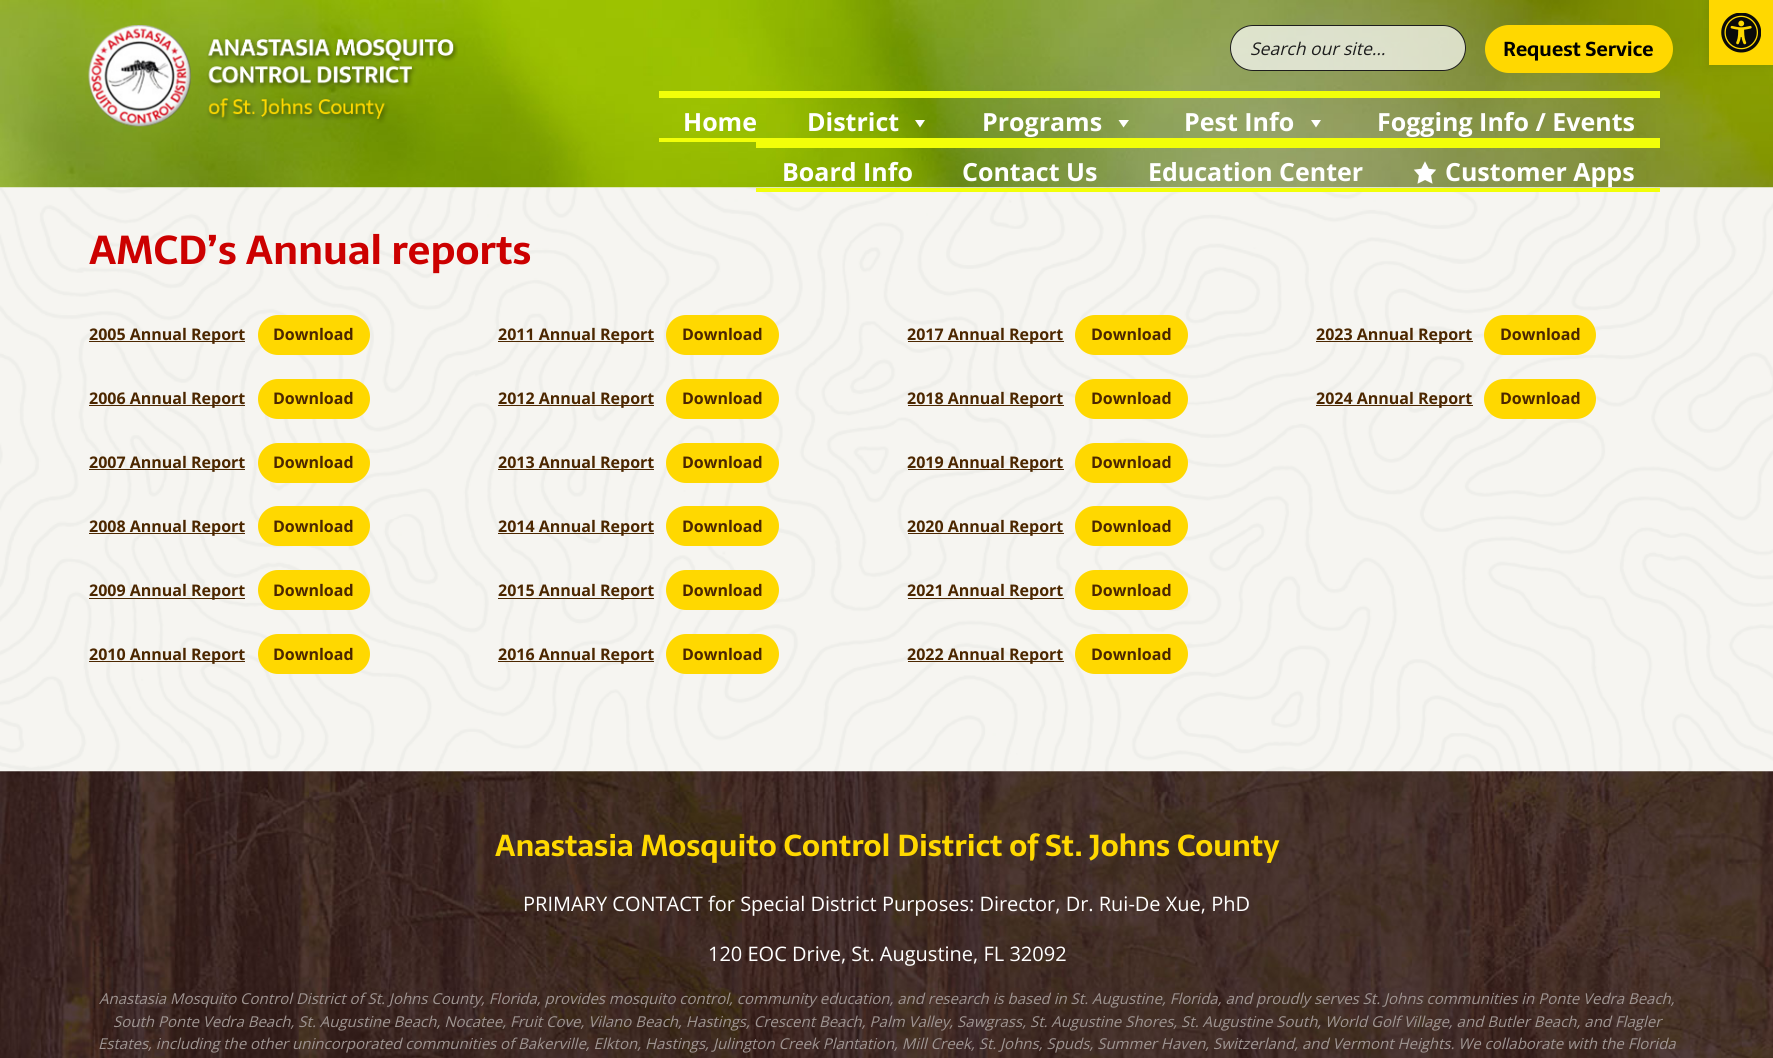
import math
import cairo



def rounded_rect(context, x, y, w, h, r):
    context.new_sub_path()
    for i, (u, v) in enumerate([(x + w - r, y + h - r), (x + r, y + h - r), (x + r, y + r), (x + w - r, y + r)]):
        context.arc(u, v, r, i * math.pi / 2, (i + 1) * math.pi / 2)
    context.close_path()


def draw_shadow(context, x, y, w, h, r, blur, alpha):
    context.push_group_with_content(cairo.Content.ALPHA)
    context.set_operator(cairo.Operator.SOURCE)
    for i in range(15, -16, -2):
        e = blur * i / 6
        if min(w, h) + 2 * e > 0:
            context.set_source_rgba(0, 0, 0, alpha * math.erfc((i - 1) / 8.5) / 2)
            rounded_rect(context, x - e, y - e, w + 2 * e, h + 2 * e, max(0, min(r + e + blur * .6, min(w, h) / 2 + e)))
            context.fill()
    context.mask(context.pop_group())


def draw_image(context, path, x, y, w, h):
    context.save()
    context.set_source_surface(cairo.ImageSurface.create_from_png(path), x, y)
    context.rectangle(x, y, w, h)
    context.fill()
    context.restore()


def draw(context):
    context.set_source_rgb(1, 1, 1)
    context.paint()
    draw_image(context, "images/1.png", 0, 0, 1773, 188)
    draw_image(context, "images/2.png", 88, 25, 370, 102)
    context.set_source_rgba(1, 1, 1, 0.7)
    rounded_rect(context, 1230.5, 25.5, 235, 45, 22.5)
    context.fill_preserve()
    context.set_source_rgb(29 / 255, 29 / 255, 29 / 255)
    context.set_line_width(1)
    context.stroke()
    context.set_source_rgb(1, 216 / 255, 0)
    rounded_rect(context, 1485, 25, 188, 48, 24)
    context.fill()
    context.set_source_rgb(242 / 255, 1, 9 / 255)
    context.rectangle(659, 91, 1001, 7)
    context.fill()
    context.rectangle(659, 138, 124, 4)
    context.fill()
    context.rectangle(783, 138, 877, 3)
    context.fill()
    context.set_source_rgb(1, 1, 1)
    context.new_path()
    context.move_to(925, 120)
    context.line_to(920, 127.5)
    context.line_to(915, 120)
    context.close_path()
    context.fill()
    context.new_path()
    context.move_to(1129, 120)
    context.line_to(1123.5, 127.5)
    context.line_to(1118.5, 120)
    context.close_path()
    context.fill()
    context.new_path()
    context.move_to(1321, 120)
    context.line_to(1316, 127.5)
    context.line_to(1311, 120)
    context.close_path()
    context.fill()
    context.set_source_rgb(242 / 255, 1, 9 / 255)
    context.rectangle(756, 141, 904, 7)
    context.fill()
    draw_image(context, "images/5.png", 0, 187, 1773, 585)
    context.rectangle(756, 188, 904, 4)
    context.fill()
    draw_image(context, "images/3.png", 1413, 161, 24, 23)
    context.set_source_rgb(0, 0, 0)
    draw_shadow(context, 1709, 0, 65, 65, 0, 6, 0.1)
    context.set_source_rgb(1, 216 / 255, 0)
    context.rectangle(1709, 0, 64, 65)
    context.fill()
    draw_image(context, "images/4.png", 1721, 13, 40, 40)
    context.set_source_rgb(76 / 255, 39 / 255, 0)
    context.rectangle(89, 341, 156, 1)
    context.fill()
    context.set_source_rgb(1, 216 / 255, 0)
    rounded_rect(context, 258, 315, 112, 40, 20)
    context.fill()
    context.set_source_rgb(76 / 255, 39 / 255, 0)
    context.rectangle(89, 405, 156, 1)
    context.fill()
    context.set_source_rgb(1, 216 / 255, 0)
    rounded_rect(context, 258, 379, 112, 40, 20)
    context.fill()
    context.set_source_rgb(76 / 255, 39 / 255, 0)
    context.rectangle(89, 469, 156, 1)
    context.fill()
    context.set_source_rgb(1, 216 / 255, 0)
    rounded_rect(context, 258, 443, 112, 40, 20)
    context.fill()
    context.set_source_rgb(76 / 255, 39 / 255, 0)
    context.rectangle(89, 533, 156, 1)
    context.fill()
    context.set_source_rgb(1, 216 / 255, 0)
    rounded_rect(context, 258, 506, 112, 40, 20)
    context.fill()
    context.set_source_rgb(76 / 255, 39 / 255, 0)
    context.rectangle(89, 598, 156, 1)
    context.fill()
    context.set_source_rgb(1, 216 / 255, 0)
    rounded_rect(context, 258, 570, 112, 40, 20)
    context.fill()
    context.set_source_rgb(76 / 255, 39 / 255, 0)
    context.rectangle(89, 661, 156, 1)
    context.fill()
    context.set_source_rgb(1, 216 / 255, 0)
    rounded_rect(context, 258, 634, 112, 40, 20)
    context.fill()
    context.set_source_rgb(76 / 255, 39 / 255, 0)
    context.rectangle(498, 341, 156, 1)
    context.fill()
    context.set_source_rgb(1, 216 / 255, 0)
    rounded_rect(context, 666, 315, 113, 40, 20)
    context.fill()
    context.set_source_rgb(76 / 255, 39 / 255, 0)
    context.rectangle(498, 405, 156, 1)
    context.fill()
    context.set_source_rgb(1, 216 / 255, 0)
    rounded_rect(context, 666, 379, 113, 40, 20)
    context.fill()
    context.set_source_rgb(76 / 255, 39 / 255, 0)
    context.rectangle(498, 469, 156, 1)
    context.fill()
    context.set_source_rgb(1, 216 / 255, 0)
    rounded_rect(context, 666, 443, 113, 40, 20)
    context.fill()
    context.set_source_rgb(76 / 255, 39 / 255, 0)
    context.rectangle(498, 533, 156, 1)
    context.fill()
    context.set_source_rgb(1, 216 / 255, 0)
    rounded_rect(context, 666, 506, 113, 40, 20)
    context.fill()
    context.set_source_rgb(76 / 255, 39 / 255, 0)
    context.rectangle(498, 598, 156, 1)
    context.fill()
    context.set_source_rgb(1, 216 / 255, 0)
    rounded_rect(context, 666, 570, 113, 40, 20)
    context.fill()
    context.set_source_rgb(76 / 255, 39 / 255, 0)
    context.rectangle(498, 661, 156, 1)
    context.fill()
    context.set_source_rgb(1, 216 / 255, 0)
    rounded_rect(context, 666, 634, 113, 40, 20)
    context.fill()
    context.set_source_rgb(76 / 255, 39 / 255, 0)
    context.rectangle(908, 341, 156, 1)
    context.fill()
    context.set_source_rgb(1, 216 / 255, 0)
    rounded_rect(context, 1075, 315, 113, 40, 20)
    context.fill()
    context.set_source_rgb(76 / 255, 39 / 255, 0)
    context.rectangle(908, 405, 156, 1)
    context.fill()
    context.set_source_rgb(1, 216 / 255, 0)
    rounded_rect(context, 1075, 379, 113, 40, 20)
    context.fill()
    context.set_source_rgb(76 / 255, 39 / 255, 0)
    context.rectangle(908, 469, 156, 1)
    context.fill()
    context.set_source_rgb(1, 216 / 255, 0)
    rounded_rect(context, 1075, 443, 113, 40, 20)
    context.fill()
    context.set_source_rgb(76 / 255, 39 / 255, 0)
    context.rectangle(908, 533, 156, 1)
    context.fill()
    context.set_source_rgb(1, 216 / 255, 0)
    rounded_rect(context, 1075, 506, 113, 40, 20)
    context.fill()
    context.set_source_rgb(76 / 255, 39 / 255, 0)
    context.rectangle(908, 598, 156, 1)
    context.fill()
    context.set_source_rgb(1, 216 / 255, 0)
    rounded_rect(context, 1075, 570, 113, 40, 20)
    context.fill()
    context.set_source_rgb(76 / 255, 39 / 255, 0)
    context.rectangle(908, 661, 156, 1)
    context.fill()
    context.set_source_rgb(1, 216 / 255, 0)
    rounded_rect(context, 1075, 634, 113, 40, 20)
    context.fill()
    context.set_source_rgb(76 / 255, 39 / 255, 0)
    context.rectangle(1316, 341, 157, 1)
    context.fill()
    context.set_source_rgb(1, 216 / 255, 0)
    rounded_rect(context, 1484, 315, 112, 40, 20)
    context.fill()
    context.set_source_rgb(76 / 255, 39 / 255, 0)
    context.rectangle(1316, 405, 157, 1)
    context.fill()
    context.set_source_rgb(1, 216 / 255, 0)
    rounded_rect(context, 1484, 379, 112, 40, 20)
    context.fill()
    draw_image(context, "images/6.png", 0, 771, 1773, 287)
    context.select_font_face("Open Sans", cairo.FontSlant.ITALIC)
    context.set_font_size(17.5)
    context.set_source_rgb(29 / 255, 29 / 255, 29 / 255)
    context.move_to(1250, 55)
    context.show_text("Search our site…")
    context.select_font_face("Sarala", cairo.FontSlant.NORMAL, cairo.FontWeight.BOLD)
    context.set_font_size(20)
    context.set_source_rgb(0, 0, 0)
    context.move_to(1503, 56)
    context.show_text("Request Service")
    context.select_font_face("Open Sans", cairo.FontSlant.NORMAL, cairo.FontWeight.BOLD)
    context.set_font_size(25)
    context.set_source_rgb(1, 1, 1)
    context.move_to(683, 131)
    context.show_text("Home")
    context.move_to(807, 131)
    context.show_text("District")
    context.move_to(982, 131)
    context.show_text("Programs")
    context.move_to(1184, 131)
    context.show_text("Pest Info")
    context.move_to(1377, 131)
    context.show_text("Fogging Info / Events")
    context.move_to(782, 181)
    context.show_text("Board Info")
    context.move_to(962, 181)
    context.show_text("Contact Us")
    context.move_to(1148, 181)
    context.show_text("Education Center")
    context.move_to(1445, 181)
    context.show_text("Customer Apps")
    context.select_font_face("Sarala", cairo.FontSlant.NORMAL, cairo.FontWeight.BOLD)
    context.set_font_size(40)
    context.set_source_rgb(204 / 255, 0, 0)
    context.move_to(89, 264)
    context.show_text("AMCD’s Annual reports")
    context.select_font_face("Open Sans", cairo.FontSlant.NORMAL, cairo.FontWeight.BOLD)
    context.set_font_size(16)
    context.set_source_rgb(76 / 255, 39 / 255, 0)
    context.move_to(89, 340)
    context.show_text("2005 Annual Report")
    context.move_to(273, 340)
    context.show_text("Download")
    context.move_to(89, 404)
    context.show_text("2006 Annual Report")
    context.move_to(273, 404)
    context.show_text("Download")
    context.move_to(89, 468)
    context.show_text("2007 Annual Report")
    context.move_to(273, 468)
    context.show_text("Download")
    context.move_to(89, 532)
    context.show_text("2008 Annual Report")
    context.move_to(273, 532)
    context.show_text("Download")
    context.move_to(89, 596)
    context.show_text("2009 Annual Report")
    context.move_to(273, 596)
    context.show_text("Download")
    context.move_to(89, 660)
    context.show_text("2010 Annual Report")
    context.move_to(273, 660)
    context.show_text("Download")
    context.move_to(498, 340)
    context.show_text("2011 Annual Report")
    context.move_to(682, 340)
    context.show_text("Download")
    context.move_to(498, 404)
    context.show_text("2012 Annual Report")
    context.move_to(682, 404)
    context.show_text("Download")
    context.move_to(498, 468)
    context.show_text("2013 Annual Report")
    context.move_to(682, 468)
    context.show_text("Download")
    context.move_to(498, 532)
    context.show_text("2014 Annual Report")
    context.move_to(682, 532)
    context.show_text("Download")
    context.move_to(498, 596)
    context.show_text("2015 Annual Report")
    context.move_to(682, 596)
    context.show_text("Download")
    context.move_to(498, 660)
    context.show_text("2016 Annual Report")
    context.move_to(682, 660)
    context.show_text("Download")
    context.move_to(907, 340)
    context.show_text("2017 Annual Report")
    context.move_to(1091, 340)
    context.show_text("Download")
    context.move_to(907, 404)
    context.show_text("2018 Annual Report")
    context.move_to(1091, 404)
    context.show_text("Download")
    context.move_to(907, 468)
    context.show_text("2019 Annual Report")
    context.move_to(1091, 468)
    context.show_text("Download")
    context.move_to(907, 532)
    context.show_text("2020 Annual Report")
    context.move_to(1091, 532)
    context.show_text("Download")
    context.move_to(907, 596)
    context.show_text("2021 Annual Report")
    context.move_to(1091, 596)
    context.show_text("Download")
    context.move_to(907, 660)
    context.show_text("2022 Annual Report")
    context.move_to(1091, 660)
    context.show_text("Download")
    context.move_to(1316, 340)
    context.show_text("2023 Annual Report")
    context.move_to(1500, 340)
    context.show_text("Download")
    context.move_to(1316, 404)
    context.show_text("2024 Annual Report")
    context.move_to(1500, 404)
    context.show_text("Download")
    context.select_font_face("Sarala", cairo.FontSlant.NORMAL, cairo.FontWeight.BOLD)
    context.set_font_size(30)
    context.set_source_rgb(1, 216 / 255, 0)
    context.move_to(495, 856)
    context.show_text("Anastasia Mosquito Control District of St. Johns County")
    context.select_font_face("Open Sans")
    context.set_font_size(20)
    context.set_source_rgb(1, 1, 1)
    context.move_to(523, 911)
    context.show_text("PRIMARY CONTACT for Special District Purposes: Director, Dr. Rui-De Xue, PhD")
    context.move_to(708, 961)
    context.show_text("120 EOC Drive, St. Augustine, FL 32092")
    context.select_font_face("Open Sans", cairo.FontSlant.ITALIC)
    context.set_font_size(15)
    context.set_source_rgb(159 / 255, 149 / 255, 146 / 255)
    context.move_to(99, 1004)
    context.show_text("Anastasia Mosquito Control District of St. Johns County, Florida, provides mosquito control, community education, and research is based in St. Augustine, Florida, and proudly serves St. Johns communities in Ponte Vedra Beach,")
    context.move_to(113, 1027)
    context.show_text("South Ponte Vedra Beach, St. Augustine Beach, Nocatee, Fruit Cove, Vilano Beach, Hastings, Crescent Beach, Palm Valley, Sawgrass, St. Augustine Shores, St. Augustine South, World Golf Village, and Butler Beach, and Flagler")
    context.move_to(98, 1049)
    context.show_text("Estates, including the other unincorporated communities of Bakerville, Elkton, Hastings, Julington Creek Plantation, Mill Creek, St. Johns, Spuds, Summer Haven, Switzerland, and Vermont Heights. We collaborate with the Florida")


surface = cairo.ImageSurface(cairo.Format.RGB24, 1773, 1058)
context = cairo.Context(surface)
options = cairo.FontOptions()
options.set_hint_metrics(cairo.HintMetrics.OFF)
options.set_hint_style(cairo.HintStyle.NONE)
context.set_font_options(options)
context.set_miter_limit(4)
draw(context)
surface.write_to_png("out.png")
